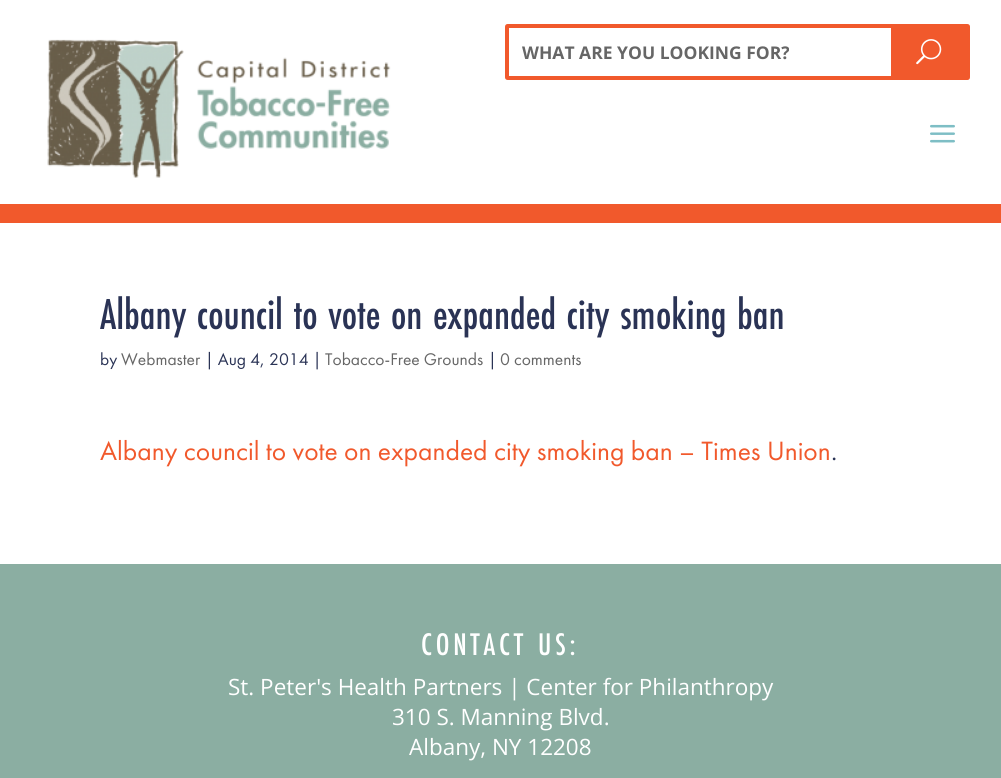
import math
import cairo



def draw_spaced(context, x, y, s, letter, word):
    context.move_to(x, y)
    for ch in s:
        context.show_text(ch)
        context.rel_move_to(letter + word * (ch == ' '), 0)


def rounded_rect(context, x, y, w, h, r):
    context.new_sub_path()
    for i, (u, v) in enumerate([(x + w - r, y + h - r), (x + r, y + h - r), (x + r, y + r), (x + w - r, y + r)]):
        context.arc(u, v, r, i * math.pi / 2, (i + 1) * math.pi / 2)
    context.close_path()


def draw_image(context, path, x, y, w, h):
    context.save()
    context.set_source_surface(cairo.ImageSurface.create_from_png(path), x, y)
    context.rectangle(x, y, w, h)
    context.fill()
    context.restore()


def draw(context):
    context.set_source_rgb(1, 1, 1)
    context.paint()
    context.set_source_rgb(241 / 255, 89 / 255, 44 / 255)
    context.rectangle(0, 204, 1001, 19)
    context.fill()
    draw_image(context, "images/1.png", 47, 39, 344, 139)
    rounded_rect(context, 507, 26, 461, 52, 0.5)
    context.set_line_width(4)
    context.stroke()
    context.rectangle(891, 28, 75, 48)
    context.fill()
    draw_image(context, "images/2.png", 916, 39, 26, 26)
    draw_image(context, "images/3.png", 930, 124, 25, 19)
    context.set_source_rgb(139 / 255, 174 / 255, 162 / 255)
    context.rectangle(0, 564, 1001, 214)
    context.fill()
    context.select_font_face("Open Sans", cairo.FontSlant.NORMAL, cairo.FontWeight.BOLD)
    context.set_font_size(17.5)
    context.set_source_rgb(102 / 255, 102 / 255, 102 / 255)
    context.move_to(522, 59)
    context.show_text("WHAT ARE YOU LOOKING FOR?")
    context.select_font_face("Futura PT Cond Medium")
    context.set_font_size(45)
    context.set_source_rgb(42 / 255, 51 / 255, 85 / 255)
    context.move_to(100, 329)
    context.show_text("Albany council to vote on expanded city smoking ban")
    context.select_font_face("Futura PT")
    context.set_font_size(17.5)
    context.move_to(100, 365)
    context.show_text("by")
    context.set_source_rgb(102 / 255, 102 / 255, 102 / 255)
    context.move_to(121, 365)
    context.show_text("Webmaster")
    context.set_source_rgb(42 / 255, 51 / 255, 85 / 255)
    context.move_to(205, 365)
    context.show_text("| Aug 4, 2014 |")
    context.set_source_rgb(102 / 255, 102 / 255, 102 / 255)
    context.move_to(325, 365)
    context.show_text("Tobacco-Free Grounds")
    context.set_source_rgb(42 / 255, 51 / 255, 85 / 255)
    context.move_to(488, 365)
    context.show_text("|")
    context.set_source_rgb(102 / 255, 102 / 255, 102 / 255)
    context.move_to(500, 365)
    context.show_text("0 comments")
    context.set_font_size(27.5)
    context.set_source_rgb(241 / 255, 89 / 255, 44 / 255)
    context.move_to(100, 460)
    context.show_text("Albany council to vote on expanded city smoking ban – Times Union")
    context.set_source_rgb(42 / 255, 51 / 255, 85 / 255)
    context.move_to(831, 460)
    context.show_text(".")
    context.select_font_face("Futura PT Cond Medium")
    context.set_font_size(32.5)
    context.set_source_rgb(1, 1, 1)
    draw_spaced(context, 421, 655, "CONTACT US:", 3.75, 0)
    context.select_font_face("Open Sans")
    context.set_font_size(22.5)
    context.move_to(228, 695)
    context.show_text("St. Peter's Health Partners | Center for Philanthropy")
    context.move_to(392, 725)
    context.show_text("310 S. Manning Blvd.")
    context.move_to(409, 755)
    context.show_text("Albany, NY 12208")


surface = cairo.ImageSurface(cairo.Format.RGB24, 1001, 778)
context = cairo.Context(surface)
options = cairo.FontOptions()
options.set_hint_metrics(cairo.HintMetrics.OFF)
options.set_hint_style(cairo.HintStyle.NONE)
context.set_font_options(options)
context.set_miter_limit(4)
draw(context)
surface.write_to_png("out.png")
